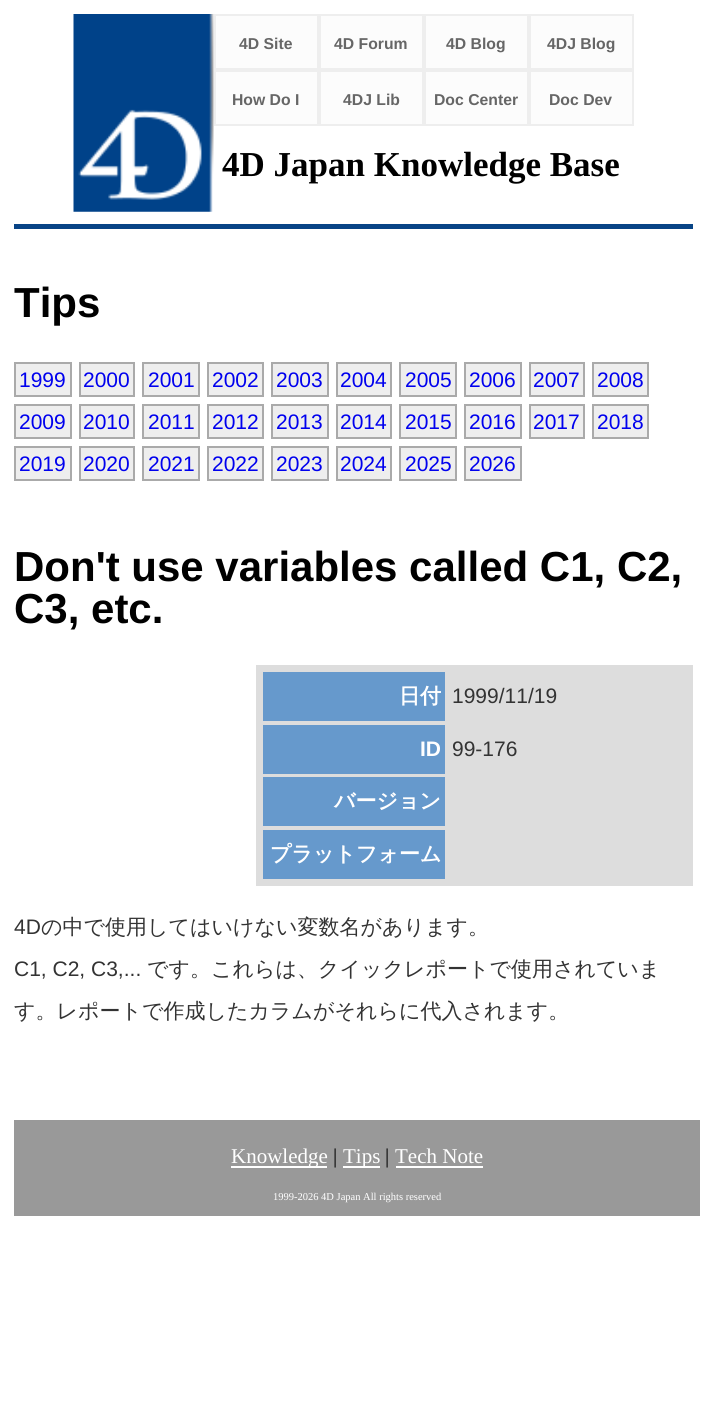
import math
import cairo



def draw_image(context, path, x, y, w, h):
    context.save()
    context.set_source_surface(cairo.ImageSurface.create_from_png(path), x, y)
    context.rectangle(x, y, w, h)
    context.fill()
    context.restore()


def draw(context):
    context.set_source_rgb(1, 1, 1)
    context.paint()
    context.set_source_rgb(8 / 255, 68 / 255, 134 / 255)
    context.rectangle(14, 224, 679, 5)
    context.fill()
    draw_image(context, "images/1.png", 73, 14, 141, 198)
    context.set_source_rgb(252 / 255, 252 / 255, 252 / 255)
    context.rectangle(215, 15, 103, 54)
    context.fill_preserve()
    context.set_source_rgb(238 / 255, 238 / 255, 238 / 255)
    context.stroke()
    context.set_source_rgb(252 / 255, 252 / 255, 252 / 255)
    context.rectangle(320, 15, 103, 54)
    context.fill_preserve()
    context.set_source_rgb(238 / 255, 238 / 255, 238 / 255)
    context.stroke()
    context.set_source_rgb(252 / 255, 252 / 255, 252 / 255)
    context.rectangle(425, 15, 103, 54)
    context.fill_preserve()
    context.set_source_rgb(238 / 255, 238 / 255, 238 / 255)
    context.stroke()
    context.set_source_rgb(252 / 255, 252 / 255, 252 / 255)
    context.rectangle(530, 15, 103, 54)
    context.fill_preserve()
    context.set_source_rgb(238 / 255, 238 / 255, 238 / 255)
    context.stroke()
    context.set_source_rgb(252 / 255, 252 / 255, 252 / 255)
    context.rectangle(215, 71, 103, 54)
    context.fill_preserve()
    context.set_source_rgb(238 / 255, 238 / 255, 238 / 255)
    context.stroke()
    context.set_source_rgb(252 / 255, 252 / 255, 252 / 255)
    context.rectangle(320, 71, 103, 54)
    context.fill_preserve()
    context.set_source_rgb(238 / 255, 238 / 255, 238 / 255)
    context.stroke()
    context.set_source_rgb(252 / 255, 252 / 255, 252 / 255)
    context.rectangle(425, 71, 103, 54)
    context.fill_preserve()
    context.set_source_rgb(238 / 255, 238 / 255, 238 / 255)
    context.stroke()
    context.set_source_rgb(252 / 255, 252 / 255, 252 / 255)
    context.rectangle(530, 71, 103, 54)
    context.fill_preserve()
    context.set_source_rgb(238 / 255, 238 / 255, 238 / 255)
    context.stroke()
    context.rectangle(15, 363, 56, 33)
    context.fill_preserve()
    context.set_source_rgb(170 / 255, 170 / 255, 170 / 255)
    context.stroke()
    context.set_source_rgb(238 / 255, 238 / 255, 238 / 255)
    context.rectangle(80, 363, 54, 33)
    context.fill_preserve()
    context.set_source_rgb(170 / 255, 170 / 255, 170 / 255)
    context.stroke()
    context.set_source_rgb(238 / 255, 238 / 255, 238 / 255)
    context.rectangle(143, 363, 56, 33)
    context.fill_preserve()
    context.set_source_rgb(170 / 255, 170 / 255, 170 / 255)
    context.stroke()
    context.set_source_rgb(238 / 255, 238 / 255, 238 / 255)
    context.rectangle(208, 363, 55, 33)
    context.fill_preserve()
    context.set_source_rgb(170 / 255, 170 / 255, 170 / 255)
    context.stroke()
    context.set_source_rgb(238 / 255, 238 / 255, 238 / 255)
    context.rectangle(272, 363, 56, 33)
    context.fill_preserve()
    context.set_source_rgb(170 / 255, 170 / 255, 170 / 255)
    context.stroke()
    context.set_source_rgb(238 / 255, 238 / 255, 238 / 255)
    context.rectangle(337, 363, 54, 33)
    context.fill_preserve()
    context.set_source_rgb(170 / 255, 170 / 255, 170 / 255)
    context.stroke()
    context.set_source_rgb(238 / 255, 238 / 255, 238 / 255)
    context.rectangle(400, 363, 56, 33)
    context.fill_preserve()
    context.set_source_rgb(170 / 255, 170 / 255, 170 / 255)
    context.stroke()
    context.set_source_rgb(238 / 255, 238 / 255, 238 / 255)
    context.rectangle(465, 363, 56, 33)
    context.fill_preserve()
    context.set_source_rgb(170 / 255, 170 / 255, 170 / 255)
    context.stroke()
    context.set_source_rgb(238 / 255, 238 / 255, 238 / 255)
    context.rectangle(530, 363, 54, 33)
    context.fill_preserve()
    context.set_source_rgb(170 / 255, 170 / 255, 170 / 255)
    context.stroke()
    context.set_source_rgb(238 / 255, 238 / 255, 238 / 255)
    context.rectangle(593, 363, 55, 33)
    context.fill_preserve()
    context.set_source_rgb(170 / 255, 170 / 255, 170 / 255)
    context.stroke()
    context.set_source_rgb(238 / 255, 238 / 255, 238 / 255)
    context.rectangle(15, 405, 56, 33)
    context.fill_preserve()
    context.set_source_rgb(170 / 255, 170 / 255, 170 / 255)
    context.stroke()
    context.set_source_rgb(238 / 255, 238 / 255, 238 / 255)
    context.rectangle(80, 405, 54, 33)
    context.fill_preserve()
    context.set_source_rgb(170 / 255, 170 / 255, 170 / 255)
    context.stroke()
    context.set_source_rgb(238 / 255, 238 / 255, 238 / 255)
    context.rectangle(143, 405, 56, 33)
    context.fill_preserve()
    context.set_source_rgb(170 / 255, 170 / 255, 170 / 255)
    context.stroke()
    context.set_source_rgb(238 / 255, 238 / 255, 238 / 255)
    context.rectangle(208, 405, 55, 33)
    context.fill_preserve()
    context.set_source_rgb(170 / 255, 170 / 255, 170 / 255)
    context.stroke()
    context.set_source_rgb(238 / 255, 238 / 255, 238 / 255)
    context.rectangle(272, 405, 56, 33)
    context.fill_preserve()
    context.set_source_rgb(170 / 255, 170 / 255, 170 / 255)
    context.stroke()
    context.set_source_rgb(238 / 255, 238 / 255, 238 / 255)
    context.rectangle(337, 405, 54, 33)
    context.fill_preserve()
    context.set_source_rgb(170 / 255, 170 / 255, 170 / 255)
    context.stroke()
    context.set_source_rgb(238 / 255, 238 / 255, 238 / 255)
    context.rectangle(400, 405, 56, 33)
    context.fill_preserve()
    context.set_source_rgb(170 / 255, 170 / 255, 170 / 255)
    context.stroke()
    context.set_source_rgb(238 / 255, 238 / 255, 238 / 255)
    context.rectangle(465, 405, 56, 33)
    context.fill_preserve()
    context.set_source_rgb(170 / 255, 170 / 255, 170 / 255)
    context.stroke()
    context.set_source_rgb(238 / 255, 238 / 255, 238 / 255)
    context.rectangle(530, 405, 54, 33)
    context.fill_preserve()
    context.set_source_rgb(170 / 255, 170 / 255, 170 / 255)
    context.stroke()
    context.set_source_rgb(238 / 255, 238 / 255, 238 / 255)
    context.rectangle(593, 405, 55, 33)
    context.fill_preserve()
    context.set_source_rgb(170 / 255, 170 / 255, 170 / 255)
    context.stroke()
    context.set_source_rgb(238 / 255, 238 / 255, 238 / 255)
    context.rectangle(15, 447, 56, 33)
    context.fill_preserve()
    context.set_source_rgb(170 / 255, 170 / 255, 170 / 255)
    context.stroke()
    context.set_source_rgb(238 / 255, 238 / 255, 238 / 255)
    context.rectangle(80, 447, 54, 33)
    context.fill_preserve()
    context.set_source_rgb(170 / 255, 170 / 255, 170 / 255)
    context.stroke()
    context.set_source_rgb(238 / 255, 238 / 255, 238 / 255)
    context.rectangle(143, 447, 56, 33)
    context.fill_preserve()
    context.set_source_rgb(170 / 255, 170 / 255, 170 / 255)
    context.stroke()
    context.set_source_rgb(238 / 255, 238 / 255, 238 / 255)
    context.rectangle(208, 447, 55, 33)
    context.fill_preserve()
    context.set_source_rgb(170 / 255, 170 / 255, 170 / 255)
    context.stroke()
    context.set_source_rgb(238 / 255, 238 / 255, 238 / 255)
    context.rectangle(272, 447, 56, 33)
    context.fill_preserve()
    context.set_source_rgb(170 / 255, 170 / 255, 170 / 255)
    context.stroke()
    context.set_source_rgb(238 / 255, 238 / 255, 238 / 255)
    context.rectangle(337, 447, 54, 33)
    context.fill_preserve()
    context.set_source_rgb(170 / 255, 170 / 255, 170 / 255)
    context.stroke()
    context.set_source_rgb(238 / 255, 238 / 255, 238 / 255)
    context.rectangle(400, 447, 56, 33)
    context.fill_preserve()
    context.set_source_rgb(170 / 255, 170 / 255, 170 / 255)
    context.stroke()
    context.set_source_rgb(238 / 255, 238 / 255, 238 / 255)
    context.rectangle(465, 447, 56, 33)
    context.fill_preserve()
    context.set_source_rgb(170 / 255, 170 / 255, 170 / 255)
    context.stroke()
    context.set_source_rgb(221 / 255, 221 / 255, 221 / 255)
    context.rectangle(256, 665, 437, 221)
    context.fill()
    context.set_source_rgb(102 / 255, 153 / 255, 204 / 255)
    context.rectangle(263, 672, 182, 49)
    context.fill()
    context.rectangle(263, 725, 182, 49)
    context.fill()
    context.rectangle(263, 777, 182, 49)
    context.fill()
    context.rectangle(263, 830, 182, 49)
    context.fill()
    context.set_source_rgb(153 / 255, 153 / 255, 153 / 255)
    context.rectangle(14, 1120, 686, 96)
    context.fill()
    context.set_source_rgb(1, 1, 1)
    context.rectangle(231, 1166, 96, 2)
    context.fill()
    context.rectangle(343, 1166, 37, 2)
    context.fill()
    context.rectangle(396, 1166, 87, 2)
    context.fill()
    context.select_font_face("Liberation Sans", cairo.FontSlant.NORMAL, cairo.FontWeight.BOLD)
    context.set_font_size(15.75)
    context.set_source_rgb(102 / 255, 102 / 255, 102 / 255)
    context.move_to(239, 49)
    context.show_text("4D Site")
    context.move_to(334, 49)
    context.show_text("4D Forum")
    context.move_to(446, 49)
    context.show_text("4D Blog")
    context.move_to(547, 49)
    context.show_text("4DJ Blog")
    context.move_to(232, 105)
    context.show_text("How Do I")
    context.move_to(343, 105)
    context.show_text("4DJ Lib")
    context.move_to(434, 105)
    context.show_text("Doc Center")
    context.move_to(549, 105)
    context.show_text("Doc Dev")
    context.select_font_face("Liberation Serif", cairo.FontSlant.NORMAL, cairo.FontWeight.BOLD)
    context.set_font_size(35)
    context.set_source_rgb(0, 0, 0)
    context.move_to(222, 176)
    context.show_text("4D Japan Knowledge Base")
    context.select_font_face("Liberation Sans", cairo.FontSlant.NORMAL, cairo.FontWeight.BOLD)
    context.set_font_size(42)
    context.move_to(14, 317)
    context.show_text("Tips")
    context.select_font_face("Liberation Sans")
    context.set_font_size(21)
    context.set_source_rgb(0, 0, 238 / 255)
    context.move_to(19, 387)
    context.show_text("1999")
    context.move_to(83, 387)
    context.show_text("2000")
    context.move_to(148, 387)
    context.show_text("2001")
    context.move_to(212, 387)
    context.show_text("2002")
    context.move_to(276, 387)
    context.show_text("2003")
    context.move_to(340, 387)
    context.show_text("2004")
    context.move_to(405, 387)
    context.show_text("2005")
    context.move_to(469, 387)
    context.show_text("2006")
    context.move_to(533, 387)
    context.show_text("2007")
    context.move_to(597, 387)
    context.show_text("2008")
    context.move_to(19, 429)
    context.show_text("2009")
    context.move_to(83, 429)
    context.show_text("2010")
    context.move_to(148, 429)
    context.show_text("2011")
    context.move_to(212, 429)
    context.show_text("2012")
    context.move_to(276, 429)
    context.show_text("2013")
    context.move_to(340, 429)
    context.show_text("2014")
    context.move_to(405, 429)
    context.show_text("2015")
    context.move_to(469, 429)
    context.show_text("2016")
    context.move_to(533, 429)
    context.show_text("2017")
    context.move_to(597, 429)
    context.show_text("2018")
    context.move_to(19, 471)
    context.show_text("2019")
    context.move_to(83, 471)
    context.show_text("2020")
    context.move_to(148, 471)
    context.show_text("2021")
    context.move_to(212, 471)
    context.show_text("2022")
    context.move_to(276, 471)
    context.show_text("2023")
    context.move_to(340, 471)
    context.show_text("2024")
    context.move_to(405, 471)
    context.show_text("2025")
    context.move_to(469, 471)
    context.show_text("2026")
    context.select_font_face("Liberation Sans", cairo.FontSlant.NORMAL, cairo.FontWeight.BOLD)
    context.set_font_size(42)
    context.set_source_rgb(0, 0, 0)
    context.move_to(14, 581)
    context.show_text("Don't use variables called C1, C2,")
    context.move_to(14, 623)
    context.show_text("C3, etc.")
    context.select_font_face("WenQuanYi Zen Hei", cairo.FontSlant.NORMAL, cairo.FontWeight.BOLD)
    context.set_font_size(21)
    context.set_source_rgb(1, 1, 1)
    context.move_to(399, 703)
    context.show_text("日付")
    context.select_font_face("Liberation Sans")
    context.set_source_rgb(51 / 255, 51 / 255, 51 / 255)
    context.move_to(452, 703)
    context.show_text("1999/11/19")
    context.select_font_face("Liberation Sans", cairo.FontSlant.NORMAL, cairo.FontWeight.BOLD)
    context.set_source_rgb(1, 1, 1)
    context.move_to(420, 756)
    context.show_text("ID")
    context.select_font_face("Liberation Sans")
    context.set_source_rgb(51 / 255, 51 / 255, 51 / 255)
    context.move_to(452, 756)
    context.show_text("99-176")
    context.select_font_face("WenQuanYi Zen Hei", cairo.FontSlant.NORMAL, cairo.FontWeight.BOLD)
    context.set_source_rgb(1, 1, 1)
    context.move_to(334, 808)
    context.show_text("バージョン")
    context.move_to(270, 861)
    context.show_text("プラットフォーム")
    context.select_font_face("Liberation Sans")
    context.set_source_rgb(51 / 255, 51 / 255, 51 / 255)
    context.move_to(14, 934)
    context.show_text("4D")
    context.select_font_face("WenQuanYi Zen Hei Medium")
    context.move_to(41, 934)
    context.show_text("の中で使用してはいけない変数名があります。")
    context.select_font_face("Liberation Sans")
    context.move_to(14, 976)
    context.show_text("C1, C2, C3,...")
    context.select_font_face("WenQuanYi Zen Hei Medium")
    context.move_to(147, 976)
    context.show_text("です。これらは、クイックレポートで使用されていま")
    context.move_to(14, 1018)
    context.show_text("す。レポートで作成したカラムがそれらに代入されます。")
    context.select_font_face("Liberation Serif")
    context.set_source_rgb(1, 1, 1)
    context.move_to(231, 1163)
    context.show_text("Knowledge")
    context.set_source_rgb(0, 0, 0)
    context.move_to(333, 1163)
    context.show_text("|")
    context.set_source_rgb(1, 1, 1)
    context.move_to(343, 1163)
    context.show_text("Tips")
    context.set_source_rgb(0, 0, 0)
    context.move_to(385, 1163)
    context.show_text("|")
    context.set_source_rgb(1, 1, 1)
    context.move_to(395, 1163)
    context.show_text("Tech Note")
    context.set_font_size(10.5)
    context.move_to(273, 1200)
    context.show_text("1999-2026 4D Japan All rights reserved")


surface = cairo.ImageSurface(cairo.Format.RGB24, 707, 1413)
context = cairo.Context(surface)
options = cairo.FontOptions()
options.set_hint_metrics(cairo.HintMetrics.OFF)
options.set_hint_style(cairo.HintStyle.NONE)
context.set_font_options(options)
context.set_miter_limit(4)
draw(context)
surface.write_to_png("out.png")
